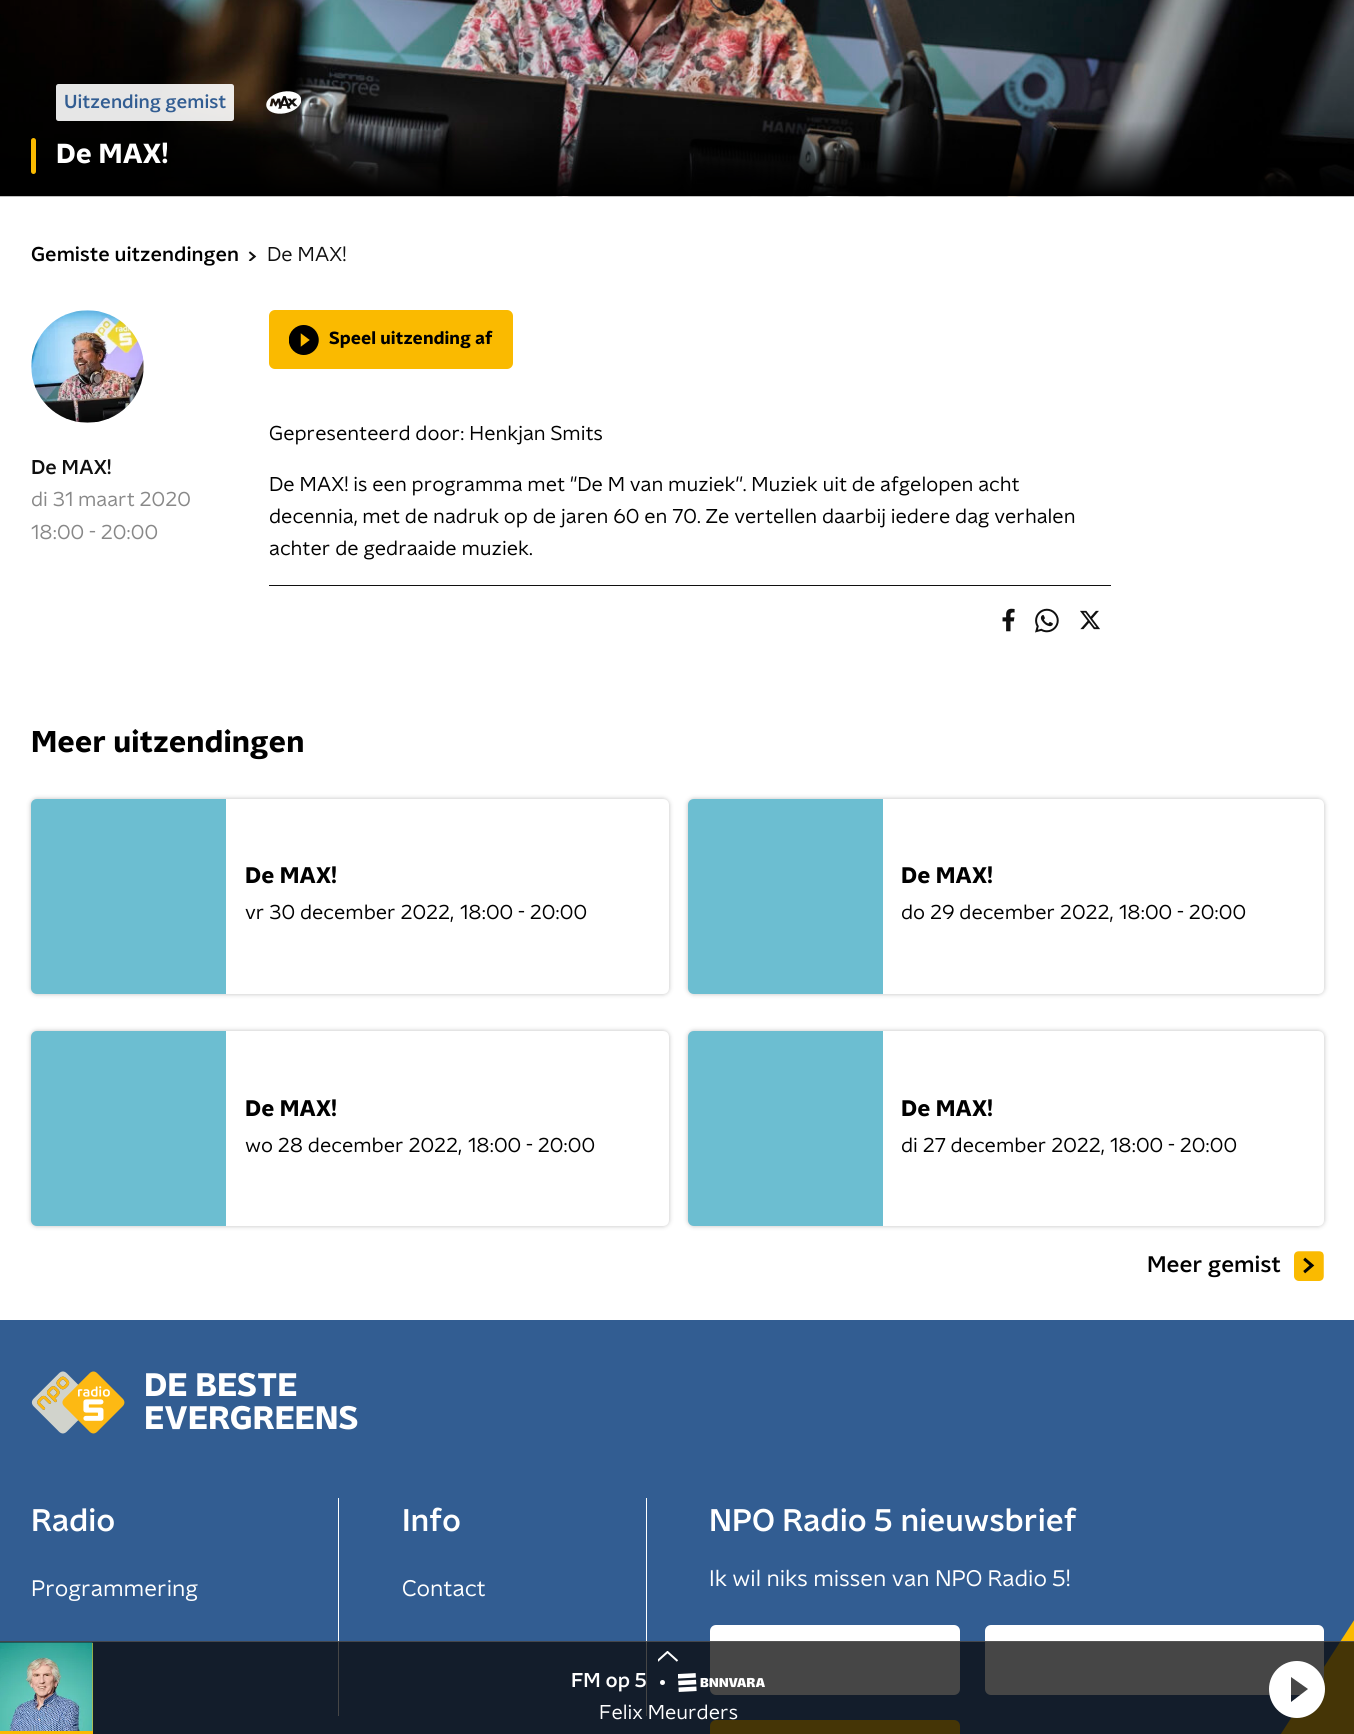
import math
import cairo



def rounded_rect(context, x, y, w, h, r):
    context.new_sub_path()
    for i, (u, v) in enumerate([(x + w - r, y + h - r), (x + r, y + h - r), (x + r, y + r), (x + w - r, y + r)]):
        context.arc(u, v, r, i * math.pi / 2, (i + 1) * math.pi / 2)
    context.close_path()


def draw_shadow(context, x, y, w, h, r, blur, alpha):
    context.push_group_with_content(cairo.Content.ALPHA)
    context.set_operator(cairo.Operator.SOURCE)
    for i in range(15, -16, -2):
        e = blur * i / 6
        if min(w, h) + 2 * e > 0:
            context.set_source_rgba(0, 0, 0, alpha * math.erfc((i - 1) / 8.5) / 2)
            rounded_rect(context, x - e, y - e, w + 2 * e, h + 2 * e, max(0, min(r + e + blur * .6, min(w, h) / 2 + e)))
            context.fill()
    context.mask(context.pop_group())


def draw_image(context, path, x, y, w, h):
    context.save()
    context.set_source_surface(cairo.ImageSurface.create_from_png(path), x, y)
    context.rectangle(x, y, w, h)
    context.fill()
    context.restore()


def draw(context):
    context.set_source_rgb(1, 1, 1)
    context.paint()
    draw_image(context, "images/1.png", 0, 0, 1354, 197)
    context.set_source_rgba(1, 1, 1, 0.9)
    rounded_rect(context, 56, 84, 178, 37, 2.5)
    context.fill()
    draw_image(context, "images/2.png", 266, 91, 35, 23)
    context.set_source_rgb(250 / 255, 186 / 255, 0)
    rounded_rect(context, 31, 138, 5, 36, 2.5)
    context.fill()
    draw_image(context, "images/3.png", 248, 251, 9, 10)
    draw_image(context, "images/4.png", 31, 310, 113, 113)
    rounded_rect(context, 269, 310, 244, 59, 6)
    context.fill()
    draw_image(context, "images/5.png", 289, 325, 30, 30)
    context.set_source_rgb(16 / 255, 16 / 255, 16 / 255)
    context.rectangle(269, 585, 842, 1)
    context.fill()
    draw_image(context, "images/6.png", 1002, 608, 13, 24)
    draw_image(context, "images/7.png", 1035, 608, 24, 25)
    draw_image(context, "images/8.png", 1080, 610, 20, 20)
    context.set_source_rgb(0, 0, 0)
    draw_shadow(context, 31, 799, 638, 195, 6, 2.5, 0.25)
    context.set_source_rgb(108 / 255, 190 / 255, 209 / 255)
    context.new_path()
    context.move_to(37, 799)
    context.line_to(226, 799)
    context.line_to(226, 994)
    context.line_to(37, 994)
    context.curve_to(33.5, 994, 31, 991.5, 31, 988)
    context.line_to(31, 805)
    context.curve_to(31, 801.5, 33.5, 799, 37, 799)
    context.close_path()
    context.fill()
    context.set_source_rgb(1, 1, 1)
    context.new_path()
    context.move_to(226, 799)
    context.line_to(663, 799)
    context.curve_to(666.5, 799, 669, 801.5, 669, 805)
    context.line_to(669, 988)
    context.curve_to(669, 991.5, 666.5, 994, 663, 994)
    context.line_to(226, 994)
    context.close_path()
    context.fill()
    context.set_source_rgb(0, 0, 0)
    draw_shadow(context, 688, 799, 636, 195, 6, 2.5, 0.25)
    context.set_source_rgb(108 / 255, 190 / 255, 209 / 255)
    context.new_path()
    context.move_to(694, 799)
    context.line_to(883, 799)
    context.line_to(883, 994)
    context.line_to(694, 994)
    context.curve_to(690.5, 994, 688, 991.5, 688, 988)
    context.line_to(688, 805)
    context.curve_to(688, 801.5, 690.5, 799, 694, 799)
    context.close_path()
    context.fill()
    context.set_source_rgb(1, 1, 1)
    context.new_path()
    context.move_to(883, 799)
    context.line_to(1318, 799)
    context.curve_to(1321.5, 799, 1324, 801.5, 1324, 805)
    context.line_to(1324, 988)
    context.curve_to(1324, 991.5, 1321.5, 994, 1318, 994)
    context.line_to(883, 994)
    context.close_path()
    context.fill()
    context.set_source_rgb(0, 0, 0)
    draw_shadow(context, 31, 1031, 638, 195, 6, 2.5, 0.25)
    context.set_source_rgb(108 / 255, 190 / 255, 209 / 255)
    context.new_path()
    context.move_to(37, 1031)
    context.line_to(226, 1031)
    context.line_to(226, 1226)
    context.line_to(37, 1226)
    context.curve_to(33.5, 1226, 31, 1223.5, 31, 1220)
    context.line_to(31, 1037)
    context.curve_to(31, 1033.5, 33.5, 1031, 37, 1031)
    context.close_path()
    context.fill()
    context.set_source_rgb(1, 1, 1)
    context.new_path()
    context.move_to(226, 1031)
    context.line_to(663, 1031)
    context.curve_to(666.5, 1031, 669, 1033.5, 669, 1037)
    context.line_to(669, 1220)
    context.curve_to(669, 1223.5, 666.5, 1226, 663, 1226)
    context.line_to(226, 1226)
    context.close_path()
    context.fill()
    context.set_source_rgb(0, 0, 0)
    draw_shadow(context, 688, 1031, 636, 195, 6, 2.5, 0.25)
    context.set_source_rgb(108 / 255, 190 / 255, 209 / 255)
    context.new_path()
    context.move_to(694, 1031)
    context.line_to(883, 1031)
    context.line_to(883, 1226)
    context.line_to(694, 1226)
    context.curve_to(690.5, 1226, 688, 1223.5, 688, 1220)
    context.line_to(688, 1037)
    context.curve_to(688, 1033.5, 690.5, 1031, 694, 1031)
    context.close_path()
    context.fill()
    context.set_source_rgb(1, 1, 1)
    context.new_path()
    context.move_to(883, 1031)
    context.line_to(1318, 1031)
    context.curve_to(1321.5, 1031, 1324, 1033.5, 1324, 1037)
    context.line_to(1324, 1220)
    context.curve_to(1324, 1223.5, 1321.5, 1226, 1318, 1226)
    context.line_to(883, 1226)
    context.close_path()
    context.fill()
    draw_image(context, "images/9.png", 1294, 1251, 30, 30)
    context.set_source_rgb(50 / 255, 93 / 255, 146 / 255)
    context.rectangle(0, 1320, 1354, 414)
    context.fill()
    draw_image(context, "images/10.png", 31, 1371, 94, 63)
    context.set_source_rgb(1, 1, 1)
    context.rectangle(646, 1498, 1, 218)
    context.fill()
    context.rectangle(338, 1498, 1, 218)
    context.fill()
    rounded_rect(context, 710, 1625, 250, 70, 6)
    context.fill()
    context.set_source_rgb(250 / 255, 186 / 255, 0)
    context.new_path()
    context.move_to(1165, 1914)
    context.line_to(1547, 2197)
    context.line_to(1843, 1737)
    context.line_to(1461, 1454)
    context.close_path()
    context.fill()
    context.set_source_rgb(1, 1, 1)
    rounded_rect(context, 985, 1625, 339, 70, 6)
    context.fill()
    context.set_source_rgb(250 / 255, 186 / 255, 0)
    rounded_rect(context, 710, 1720, 250, 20, 6)
    context.fill()
    context.set_source_rgba(9 / 255, 9 / 255, 9 / 255, 0.75)
    context.rectangle(0, 1641, 1354, 93)
    context.fill()
    context.set_source_rgba(95 / 255, 95 / 255, 95 / 255, 0.65)
    context.rectangle(0, 1641, 1354, 1)
    context.fill()
    context.set_source_rgb(250 / 255, 186 / 255, 0)
    context.rectangle(92, 1643, 1, 88)
    context.fill()
    draw_image(context, "images/11.png", 0, 1642, 93, 89)
    context.rectangle(0, 1731, 93, 3)
    context.fill()
    context.save()
    context.rectangle(658, 1651, 22, 12)
    context.clip()
    context.new_path()
    context.move_to(677.5, 1661)
    context.line_to(667.5, 1652)
    context.line_to(657.5, 1661)
    context.set_source_rgb(1, 1, 1)
    context.stroke()
    context.restore()
    context.set_source_rgb(1, 1, 1)
    context.arc(662.5, 1682.5, 2.5, 0, 2 * math.pi)
    context.fill()
    draw_image(context, "images/12.png", 678, 1673, 87, 19)
    context.new_path()
    context.move_to(1297, 1661)
    context.curve_to(1281, 1661, 1269, 1674, 1269, 1689)
    context.curve_to(1269, 1705, 1281, 1718, 1297, 1718)
    context.curve_to(1312, 1718, 1325, 1705, 1325, 1689)
    context.curve_to(1325, 1674, 1312, 1661, 1297, 1661)
    context.close_path()
    context.move_to(1291, 1702)
    context.line_to(1291, 1677)
    context.line_to(1308, 1689)
    context.close_path()
    context.fill()
    context.select_font_face("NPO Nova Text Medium")
    context.set_font_size(18.75)
    context.set_source_rgb(50 / 255, 93 / 255, 146 / 255)
    context.move_to(64, 108)
    context.show_text("Uitzending gemist")
    context.select_font_face("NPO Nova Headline", cairo.FontSlant.NORMAL, cairo.FontWeight.BOLD)
    context.set_font_size(27.5)
    context.set_source_rgb(1, 1, 1)
    context.move_to(56, 163)
    context.show_text("De MAX!")
    context.select_font_face("NPO Nova Text Medium")
    context.set_font_size(20)
    context.set_source_rgb(0, 0, 0)
    context.move_to(31, 261)
    context.show_text("Gemiste uitzendingen")
    context.select_font_face("NPO Nova Text")
    context.set_source_rgb(16 / 255, 16 / 255, 16 / 255)
    context.move_to(267, 261)
    context.show_text("De MAX!")
    context.select_font_face("NPO Nova Text Medium")
    context.move_to(31, 474)
    context.show_text("De MAX!")
    context.select_font_face("NPO Nova Text")
    context.set_source_rgb(136 / 255, 136 / 255, 136 / 255)
    context.move_to(31, 506)
    context.show_text("di 31 maart 2020")
    context.move_to(31, 539)
    context.show_text("18:00 - 20:00")
    context.select_font_face("NPO Nova Headline", cairo.FontSlant.NORMAL, cairo.FontWeight.BOLD)
    context.set_font_size(17.5)
    context.set_source_rgb(0, 0, 0)
    context.move_to(329, 344)
    context.show_text("Speel uitzending af")
    context.select_font_face("NPO Nova Text")
    context.set_font_size(20)
    context.move_to(269, 440)
    context.show_text("Gepresenteerd door: Henkjan Smits")
    context.move_to(269, 491)
    context.show_text("De MAX! is een programma met ''De M van muziek''. Muziek uit de afgelopen acht")
    context.move_to(269, 523)
    context.show_text("decennia, met de nadruk op de jaren 60 en 70. Ze vertellen daarbij iedere dag verhalen")
    context.move_to(269, 555)
    context.show_text("achter de gedraaide muziek.")
    context.select_font_face("NPO Nova Headline", cairo.FontSlant.NORMAL, cairo.FontWeight.BOLD)
    context.set_font_size(30)
    context.move_to(31, 752)
    context.show_text("Meer uitzendingen")
    context.set_font_size(22.5)
    context.move_to(245, 883)
    context.show_text("De MAX!")
    context.select_font_face("NPO Nova Text")
    context.set_font_size(20)
    context.move_to(245, 919)
    context.show_text("vr 30 december 2022,")
    context.move_to(460, 919)
    context.show_text("18:00 - 20:00")
    context.select_font_face("NPO Nova Headline", cairo.FontSlant.NORMAL, cairo.FontWeight.BOLD)
    context.set_font_size(22.5)
    context.move_to(901, 883)
    context.show_text("De MAX!")
    context.select_font_face("NPO Nova Text")
    context.set_font_size(20)
    context.move_to(901, 919)
    context.show_text("do 29 december 2022,")
    context.move_to(1119, 919)
    context.show_text("18:00 - 20:00")
    context.select_font_face("NPO Nova Headline", cairo.FontSlant.NORMAL, cairo.FontWeight.BOLD)
    context.set_font_size(22.5)
    context.move_to(245, 1116)
    context.show_text("De MAX!")
    context.select_font_face("NPO Nova Text")
    context.set_font_size(20)
    context.move_to(245, 1152)
    context.show_text("wo 28 december 2022,")
    context.move_to(468, 1152)
    context.show_text("18:00 - 20:00")
    context.select_font_face("NPO Nova Headline", cairo.FontSlant.NORMAL, cairo.FontWeight.BOLD)
    context.set_font_size(22.5)
    context.move_to(901, 1116)
    context.show_text("De MAX!")
    context.select_font_face("NPO Nova Text")
    context.set_font_size(20)
    context.move_to(901, 1152)
    context.show_text("di 27 december 2022,")
    context.move_to(1110, 1152)
    context.show_text("18:00 - 20:00")
    context.select_font_face("NPO Nova Text Medium")
    context.set_font_size(22.5)
    context.move_to(1147, 1272)
    context.show_text("Meer gemist")
    context.select_font_face("NPO Nova Headline", cairo.FontSlant.NORMAL, cairo.FontWeight.BOLD)
    context.set_font_size(32.5)
    context.set_source_rgb(1, 1, 1)
    context.move_to(144, 1396)
    context.show_text("DE BESTE")
    context.move_to(144, 1429)
    context.show_text("EVERGREENS")
    context.select_font_face("NPO Nova Text Medium")
    context.set_font_size(31.25)
    context.move_to(31, 1531)
    context.show_text("Radio")
    context.select_font_face("NPO Nova Text")
    context.set_font_size(22.5)
    context.move_to(31, 1596)
    context.show_text("Programmering")
    context.select_font_face("NPO Nova Text Medium")
    context.set_font_size(31.25)
    context.move_to(402, 1531)
    context.show_text("Info")
    context.select_font_face("NPO Nova Text")
    context.set_font_size(22.5)
    context.move_to(402, 1596)
    context.show_text("Contact")
    context.select_font_face("NPO Nova Text Medium")
    context.set_font_size(31.25)
    context.move_to(709, 1531)
    context.show_text("NPO Radio 5 nieuwsbrief")
    context.select_font_face("NPO Nova Text")
    context.set_font_size(22.5)
    context.move_to(709, 1586)
    context.show_text("Ik wil niks missen van NPO Radio 5!")
    context.select_font_face("NPO Nova Text Medium")
    context.set_font_size(20)
    context.move_to(571, 1687)
    context.show_text("FM op 5")
    context.select_font_face("NPO Nova Text")
    context.move_to(599, 1719)
    context.show_text("Felix Meurders")


surface = cairo.ImageSurface(cairo.Format.RGB24, 1354, 1734)
context = cairo.Context(surface)
options = cairo.FontOptions()
options.set_hint_metrics(cairo.HintMetrics.OFF)
options.set_hint_style(cairo.HintStyle.NONE)
context.set_font_options(options)
context.set_miter_limit(4)
draw(context)
surface.write_to_png("out.png")
